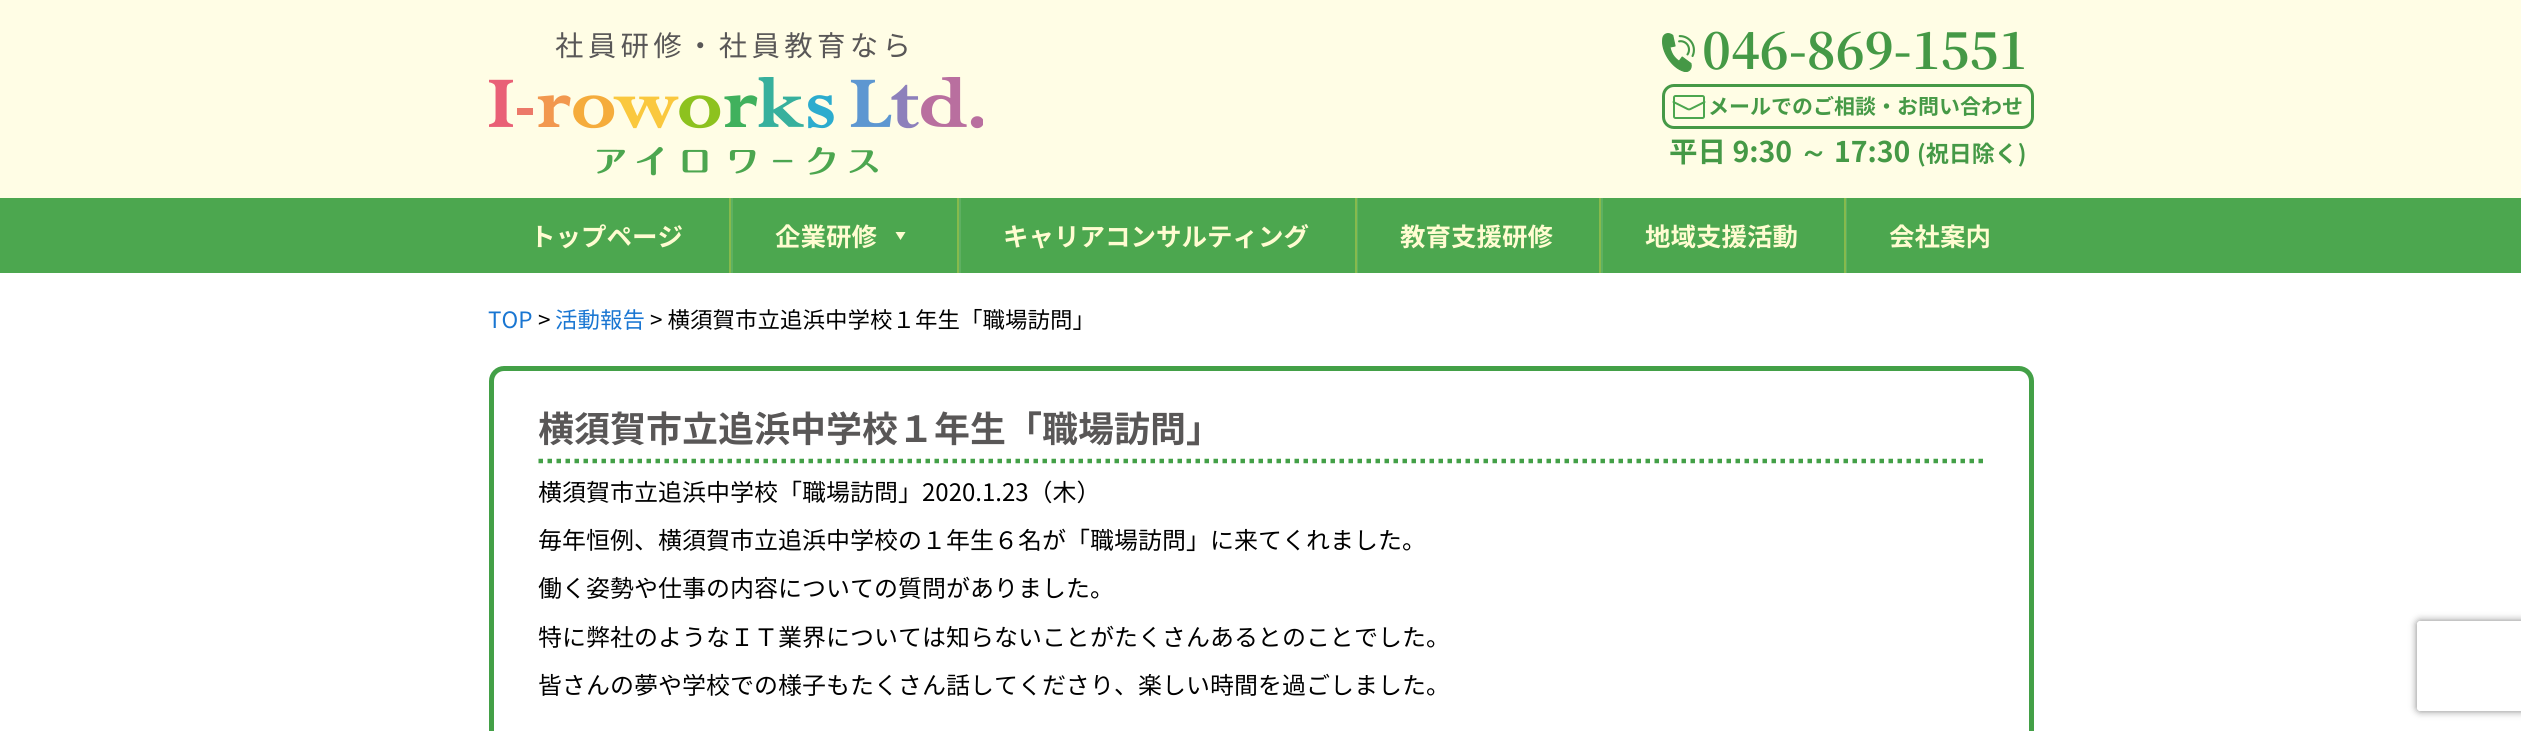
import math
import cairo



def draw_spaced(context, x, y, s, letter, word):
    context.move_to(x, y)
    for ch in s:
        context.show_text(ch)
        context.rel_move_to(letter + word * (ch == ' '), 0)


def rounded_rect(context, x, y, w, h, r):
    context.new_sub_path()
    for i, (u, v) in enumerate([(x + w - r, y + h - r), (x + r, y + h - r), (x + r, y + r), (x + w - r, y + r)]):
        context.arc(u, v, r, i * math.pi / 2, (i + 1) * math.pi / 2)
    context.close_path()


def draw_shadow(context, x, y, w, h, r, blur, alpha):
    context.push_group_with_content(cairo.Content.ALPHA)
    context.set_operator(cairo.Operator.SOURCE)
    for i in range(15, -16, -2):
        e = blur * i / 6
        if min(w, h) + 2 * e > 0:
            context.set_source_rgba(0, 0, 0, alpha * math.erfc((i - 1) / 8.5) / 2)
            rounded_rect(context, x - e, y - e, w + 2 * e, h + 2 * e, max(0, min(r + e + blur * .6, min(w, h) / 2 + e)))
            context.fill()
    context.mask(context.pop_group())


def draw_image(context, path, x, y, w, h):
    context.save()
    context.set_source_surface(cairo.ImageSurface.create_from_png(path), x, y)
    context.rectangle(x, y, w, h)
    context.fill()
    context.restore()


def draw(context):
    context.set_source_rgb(1, 1, 1)
    context.paint()
    context.set_source_rgb(1, 253 / 255, 229 / 255)
    context.rectangle(0, 0, 2521, 198)
    context.fill()
    draw_image(context, "images/1.png", 489, 77, 494, 99)
    draw_image(context, "images/2.png", 1662, 33, 33, 39)
    rounded_rect(context, 1663.5, 85.5, 369, 42, 10.5)
    context.set_source_rgb(69 / 255, 153 / 255, 70 / 255)
    context.set_line_width(3)
    context.stroke()
    rounded_rect(context, 1674, 96, 30, 22, 1.5)
    context.set_source_rgb(76 / 255, 166 / 255, 79 / 255)
    context.set_line_width(2)
    context.stroke()
    context.new_path()
    context.move_to(1673.5, 102)
    context.line_to(1687.5, 109)
    context.curve_to(1688.5, 109.5, 1689.5, 109.5, 1690.5, 109)
    context.line_to(1704.5, 102)
    context.set_line_cap(cairo.LineCap.ROUND)
    context.set_line_join(cairo.LineJoin.ROUND)
    context.stroke()
    context.set_source_rgb(76 / 255, 167 / 255, 79 / 255)
    context.rectangle(0, 198, 2521, 75)
    context.fill()
    context.set_source_rgb(94 / 255, 176 / 255, 97 / 255)
    context.rectangle(731, 198, 2, 75)
    context.fill()
    context.set_source_rgb(135 / 255, 186 / 255, 76 / 255)
    context.rectangle(729, 198, 2, 75)
    context.fill()
    context.set_source_rgb(1, 252 / 255, 209 / 255)
    context.new_path()
    context.move_to(905.5, 232)
    context.line_to(900.5, 240)
    context.line_to(895.5, 232)
    context.close_path()
    context.fill()
    context.set_source_rgb(94 / 255, 176 / 255, 97 / 255)
    context.rectangle(959, 198, 2, 75)
    context.fill()
    context.set_source_rgb(135 / 255, 186 / 255, 76 / 255)
    context.rectangle(957, 198, 2, 75)
    context.fill()
    context.set_source_rgb(94 / 255, 176 / 255, 97 / 255)
    context.rectangle(1357, 198, 1, 75)
    context.fill()
    context.set_source_rgb(135 / 255, 186 / 255, 76 / 255)
    context.rectangle(1355, 198, 2, 75)
    context.fill()
    context.set_source_rgb(94 / 255, 176 / 255, 97 / 255)
    context.rectangle(1601, 198, 2, 75)
    context.fill()
    context.set_source_rgb(135 / 255, 186 / 255, 76 / 255)
    context.rectangle(1599, 198, 2, 75)
    context.fill()
    context.set_source_rgb(94 / 255, 176 / 255, 97 / 255)
    context.rectangle(1846, 198, 1, 75)
    context.fill()
    context.set_source_rgb(135 / 255, 186 / 255, 76 / 255)
    context.rectangle(1844, 198, 2, 75)
    context.fill()
    rounded_rect(context, 491.5, 368.5, 1540, 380, 12.5)
    context.set_source_rgb(67 / 255, 160 / 255, 71 / 255)
    context.set_line_width(5)
    context.set_line_cap(cairo.LineCap.BUTT)
    context.set_line_join(cairo.LineJoin.MITER)
    context.stroke()
    context.new_path()
    context.move_to(538.5, 461)
    context.line_to(1984.5, 461)
    context.set_line_width(4.5)
    context.set_dash([4.5, 4.5])
    context.stroke()
    context.save()
    context.set_fill_rule(cairo.FillRule.EVEN_ODD)
    context.new_path()
    context.move_to(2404, 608)
    context.line_to(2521, 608)
    context.line_to(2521, 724)
    context.line_to(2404, 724)
    context.close_path()
    context.move_to(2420, 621)
    context.line_to(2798, 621)
    context.curve_to(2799.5, 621, 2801, 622.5, 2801, 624)
    context.line_to(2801, 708)
    context.curve_to(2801, 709.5, 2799.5, 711, 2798, 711)
    context.line_to(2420, 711)
    context.curve_to(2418.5, 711, 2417, 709.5, 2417, 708)
    context.line_to(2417, 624)
    context.curve_to(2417, 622.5, 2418.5, 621, 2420, 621)
    context.close_path()
    context.clip()
    context.set_source_rgb(128 / 255, 128 / 255, 128 / 255)
    draw_shadow(context, 2417, 621, 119, 90, 3, 4, 1)
    context.restore()
    context.select_font_face("Noto Sans JP")
    context.set_font_size(28.5)
    context.set_source_rgb(89 / 255, 87 / 255, 87 / 255)
    draw_spaced(context, 555, 56, "社員研修・社員教育なら", 4.25, 0)
    context.select_font_face("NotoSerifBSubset", cairo.FontSlant.NORMAL, cairo.FontWeight.BOLD)
    context.set_font_size(49.5)
    context.set_source_rgb(69 / 255, 153 / 255, 70 / 255)
    context.move_to(1702, 69)
    context.show_text("046-869-1551")
    context.select_font_face("Noto Sans JP", cairo.FontSlant.NORMAL, cairo.FontWeight.BOLD)
    context.set_font_size(21)
    context.move_to(1708, 114)
    context.show_text("メールでのご相談・お問い合わせ")
    context.set_font_size(28.5)
    context.move_to(1669, 162)
    context.show_text("平日 9:30")
    context.select_font_face("WenQuanYi Zen Hei", cairo.FontSlant.NORMAL, cairo.FontWeight.BOLD)
    context.move_to(1799, 162)
    context.show_text("～")
    context.select_font_face("Noto Sans JP", cairo.FontSlant.NORMAL, cairo.FontWeight.BOLD)
    context.move_to(1834, 162)
    context.show_text("17:30")
    context.set_font_size(23)
    context.move_to(1917, 162)
    context.show_text("(祝日除く)")
    context.set_font_size(25.5)
    context.set_source_rgb(1, 252 / 255, 209 / 255)
    context.move_to(530, 246)
    context.show_text("トップページ")
    context.move_to(775, 246)
    context.show_text("企業研修")
    context.move_to(1003, 246)
    context.show_text("キャリアコンサルティング")
    context.move_to(1400, 246)
    context.show_text("教育支援研修")
    context.move_to(1645, 246)
    context.show_text("地域支援活動")
    context.move_to(1889, 246)
    context.show_text("会社案内")
    context.select_font_face("Noto Sans JP")
    context.set_font_size(22.5)
    context.set_source_rgb(25 / 255, 118 / 255, 210 / 255)
    context.move_to(488, 328)
    context.show_text("TOP")
    context.set_source_rgb(0, 0, 0)
    context.move_to(538, 328)
    context.show_text(">")
    context.set_source_rgb(25 / 255, 118 / 255, 210 / 255)
    context.move_to(555, 328)
    context.show_text("活動報告")
    context.set_source_rgb(0, 0, 0)
    context.move_to(650, 328)
    context.show_text("> 横須賀市立追浜中学校１年生「職場訪問」")
    context.select_font_face("Noto Sans JP", cairo.FontSlant.NORMAL, cairo.FontWeight.BOLD)
    context.set_font_size(36)
    context.set_source_rgb(89 / 255, 87 / 255, 87 / 255)
    context.move_to(538, 442)
    context.show_text("横須賀市立追浜中学校１年生「職場訪問」")
    context.select_font_face("Noto Sans JP")
    context.set_font_size(24)
    context.set_source_rgb(0, 0, 0)
    context.move_to(538, 501)
    context.show_text("横須賀市立追浜中学校「職場訪問」2020.1.23（木）")
    context.move_to(538, 549)
    context.show_text("毎年恒例、横須賀市立追浜中学校の１年生６名が「職場訪問」に来てくれました。")
    context.move_to(538, 597)
    context.show_text("働く姿勢や仕事の内容についての質問がありました。")
    context.move_to(538, 646)
    context.show_text("特に弊社のようなＩＴ業界については知らないことがたくさんあるとのことでした。")
    context.move_to(538, 694)
    context.show_text("皆さんの夢や学校での様子もたくさん話してくださり、楽しい時間を過ごしました。")


surface = cairo.ImageSurface(cairo.Format.RGB24, 2521, 731)
context = cairo.Context(surface)
options = cairo.FontOptions()
options.set_hint_metrics(cairo.HintMetrics.OFF)
options.set_hint_style(cairo.HintStyle.NONE)
context.set_font_options(options)
context.set_miter_limit(4)
draw(context)
surface.write_to_png("out.png")
